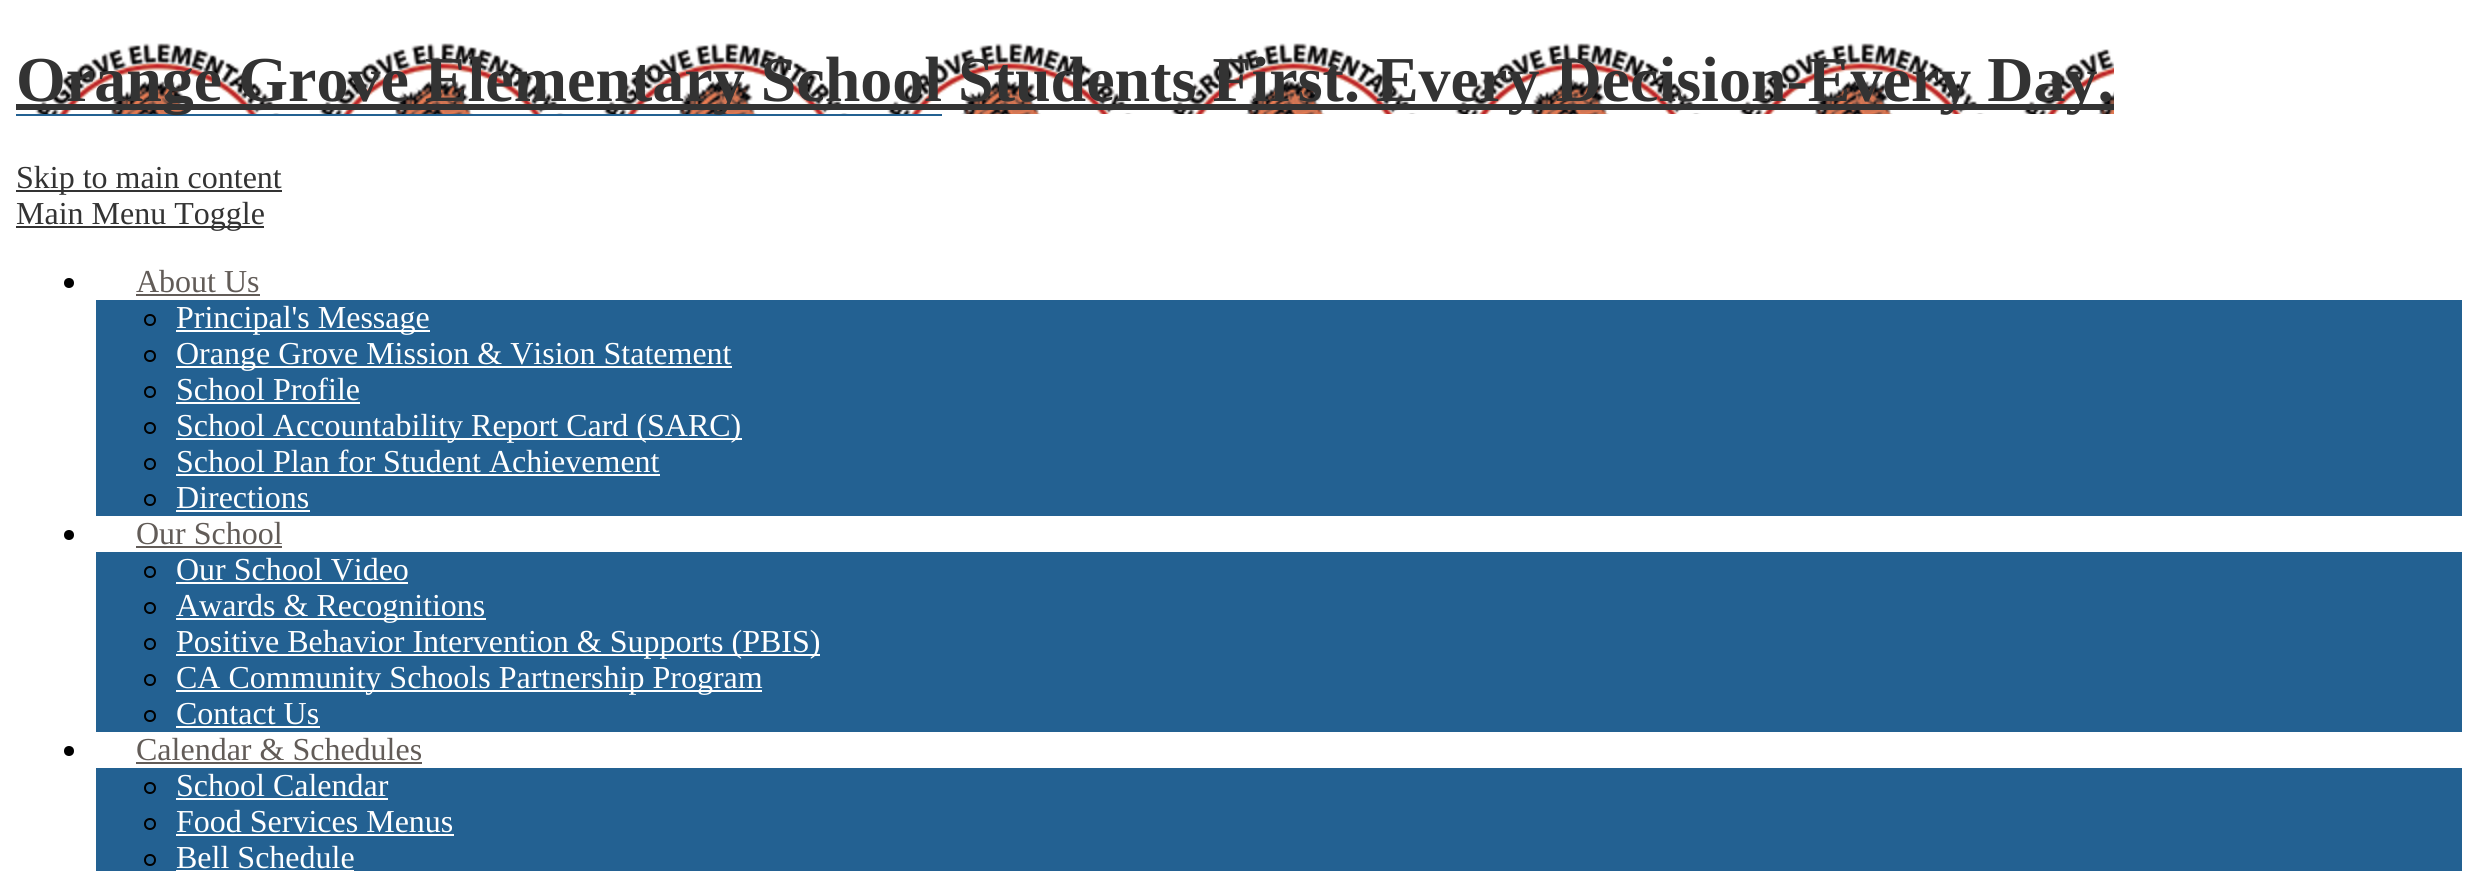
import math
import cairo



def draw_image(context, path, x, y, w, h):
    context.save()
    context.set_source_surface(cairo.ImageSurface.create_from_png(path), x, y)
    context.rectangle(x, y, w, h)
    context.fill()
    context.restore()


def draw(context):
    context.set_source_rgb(1, 1, 1)
    context.paint()
    draw_image(context, "images/1.png", 35, 43, 2079, 71)
    context.set_source_rgb(35 / 255, 97 / 255, 146 / 255)
    context.rectangle(16, 114, 926, 2)
    context.fill()
    context.set_source_rgb(51 / 255, 51 / 255, 51 / 255)
    context.rectangle(16, 104, 2098, 6)
    context.fill()
    context.rectangle(16, 190, 266, 2)
    context.fill()
    context.rectangle(16, 226, 248, 2)
    context.fill()
    context.set_source_rgb(0, 0, 0)
    context.arc(69, 283, 5, 0, 2 * math.pi)
    context.fill()
    context.set_source_rgb(98 / 255, 92 / 255, 88 / 255)
    context.rectangle(136, 294, 124, 2)
    context.fill()
    context.set_source_rgb(35 / 255, 97 / 255, 146 / 255)
    context.rectangle(96, 300, 2366, 216)
    context.fill()
    context.arc(150, 320, 5, 0, 2 * math.pi)
    context.set_source_rgb(0, 0, 0)
    context.stroke()
    context.set_source_rgb(1, 1, 1)
    context.rectangle(176, 330, 254, 2)
    context.fill()
    context.arc(150, 356, 5, 0, 2 * math.pi)
    context.set_source_rgb(0, 0, 0)
    context.stroke()
    context.set_source_rgb(1, 1, 1)
    context.rectangle(176, 366, 556, 2)
    context.fill()
    context.arc(150, 392, 5, 0, 2 * math.pi)
    context.set_source_rgb(0, 0, 0)
    context.stroke()
    context.set_source_rgb(1, 1, 1)
    context.rectangle(176, 402, 184, 2)
    context.fill()
    context.arc(150, 428, 5, 0, 2 * math.pi)
    context.set_source_rgb(0, 0, 0)
    context.stroke()
    context.set_source_rgb(1, 1, 1)
    context.rectangle(176, 438, 566, 2)
    context.fill()
    context.arc(150, 464, 5, 0, 2 * math.pi)
    context.set_source_rgb(0, 0, 0)
    context.stroke()
    context.set_source_rgb(1, 1, 1)
    context.rectangle(176, 474, 484, 2)
    context.fill()
    context.arc(150, 500, 5, 0, 2 * math.pi)
    context.set_source_rgb(0, 0, 0)
    context.stroke()
    context.set_source_rgb(1, 1, 1)
    context.rectangle(176, 510, 134, 2)
    context.fill()
    context.set_source_rgb(0, 0, 0)
    context.arc(69, 535, 5, 0, 2 * math.pi)
    context.fill()
    context.set_source_rgb(98 / 255, 92 / 255, 88 / 255)
    context.rectangle(136, 546, 146, 2)
    context.fill()
    context.set_source_rgb(35 / 255, 97 / 255, 146 / 255)
    context.rectangle(96, 552, 2366, 180)
    context.fill()
    context.arc(150, 572, 5, 0, 2 * math.pi)
    context.set_source_rgb(0, 0, 0)
    context.stroke()
    context.set_source_rgb(1, 1, 1)
    context.rectangle(176, 582, 232, 2)
    context.fill()
    context.arc(150, 608, 5, 0, 2 * math.pi)
    context.set_source_rgb(0, 0, 0)
    context.stroke()
    context.set_source_rgb(1, 1, 1)
    context.rectangle(176, 618, 310, 2)
    context.fill()
    context.arc(150, 644, 5, 0, 2 * math.pi)
    context.set_source_rgb(0, 0, 0)
    context.stroke()
    context.set_source_rgb(1, 1, 1)
    context.rectangle(176, 654, 644, 2)
    context.fill()
    context.arc(150, 680, 5, 0, 2 * math.pi)
    context.set_source_rgb(0, 0, 0)
    context.stroke()
    context.set_source_rgb(1, 1, 1)
    context.rectangle(176, 690, 586, 2)
    context.fill()
    context.arc(150, 716, 5, 0, 2 * math.pi)
    context.set_source_rgb(0, 0, 0)
    context.stroke()
    context.set_source_rgb(1, 1, 1)
    context.rectangle(176, 726, 144, 2)
    context.fill()
    context.set_source_rgb(0, 0, 0)
    context.arc(69, 751, 5, 0, 2 * math.pi)
    context.fill()
    context.set_source_rgb(98 / 255, 92 / 255, 88 / 255)
    context.rectangle(136, 762, 286, 2)
    context.fill()
    context.set_source_rgb(35 / 255, 97 / 255, 146 / 255)
    context.rectangle(96, 768, 2366, 103)
    context.fill()
    context.arc(150, 788, 5, 0, 2 * math.pi)
    context.set_source_rgb(0, 0, 0)
    context.stroke()
    context.set_source_rgb(1, 1, 1)
    context.rectangle(176, 798, 212, 2)
    context.fill()
    context.arc(150, 824, 5, 0, 2 * math.pi)
    context.set_source_rgb(0, 0, 0)
    context.stroke()
    context.set_source_rgb(1, 1, 1)
    context.rectangle(176, 834, 278, 2)
    context.fill()
    context.arc(150, 860, 5, 0, 2 * math.pi)
    context.set_source_rgb(0, 0, 0)
    context.stroke()
    context.set_source_rgb(1, 1, 1)
    context.rectangle(176, 870, 178, 1)
    context.fill()
    context.select_font_face("Liberation Serif", cairo.FontSlant.NORMAL, cairo.FontWeight.BOLD)
    context.set_font_size(64)
    context.set_source_rgb(51 / 255, 51 / 255, 51 / 255)
    context.move_to(16, 101)
    context.show_text("Orange Grove Elementary School Students First. Every Decision-Every Day.")
    context.select_font_face("Liberation Serif")
    context.set_font_size(32)
    context.move_to(16, 188)
    context.show_text("Skip to main content")
    context.move_to(16, 224)
    context.show_text("Main Menu Toggle")
    context.set_source_rgb(98 / 255, 92 / 255, 88 / 255)
    context.move_to(136, 292)
    context.show_text("About Us")
    context.set_source_rgb(1, 1, 1)
    context.move_to(176, 328)
    context.show_text("Principal's Message")
    context.move_to(176, 364)
    context.show_text("Orange Grove Mission & Vision Statement")
    context.move_to(176, 400)
    context.show_text("School Profile")
    context.move_to(176, 436)
    context.show_text("School Accountability Report Card (SARC)")
    context.move_to(176, 472)
    context.show_text("School Plan for Student Achievement")
    context.move_to(176, 508)
    context.show_text("Directions")
    context.set_source_rgb(98 / 255, 92 / 255, 88 / 255)
    context.move_to(136, 544)
    context.show_text("Our School")
    context.set_source_rgb(1, 1, 1)
    context.move_to(176, 580)
    context.show_text("Our School Video")
    context.move_to(176, 616)
    context.show_text("Awards & Recognitions")
    context.move_to(176, 652)
    context.show_text("Positive Behavior Intervention & Supports (PBIS)")
    context.move_to(176, 688)
    context.show_text("CA Community Schools Partnership Program")
    context.move_to(176, 724)
    context.show_text("Contact Us")
    context.set_source_rgb(98 / 255, 92 / 255, 88 / 255)
    context.move_to(136, 760)
    context.show_text("Calendar & Schedules")
    context.set_source_rgb(1, 1, 1)
    context.move_to(176, 796)
    context.show_text("School Calendar")
    context.move_to(176, 832)
    context.show_text("Food Services Menus")
    context.move_to(176, 868)
    context.show_text("Bell Schedule")


surface = cairo.ImageSurface(cairo.Format.RGB24, 2477, 871)
context = cairo.Context(surface)
options = cairo.FontOptions()
options.set_hint_metrics(cairo.HintMetrics.OFF)
options.set_hint_style(cairo.HintStyle.NONE)
context.set_font_options(options)
context.set_miter_limit(4)
draw(context)
surface.write_to_png("out.png")
